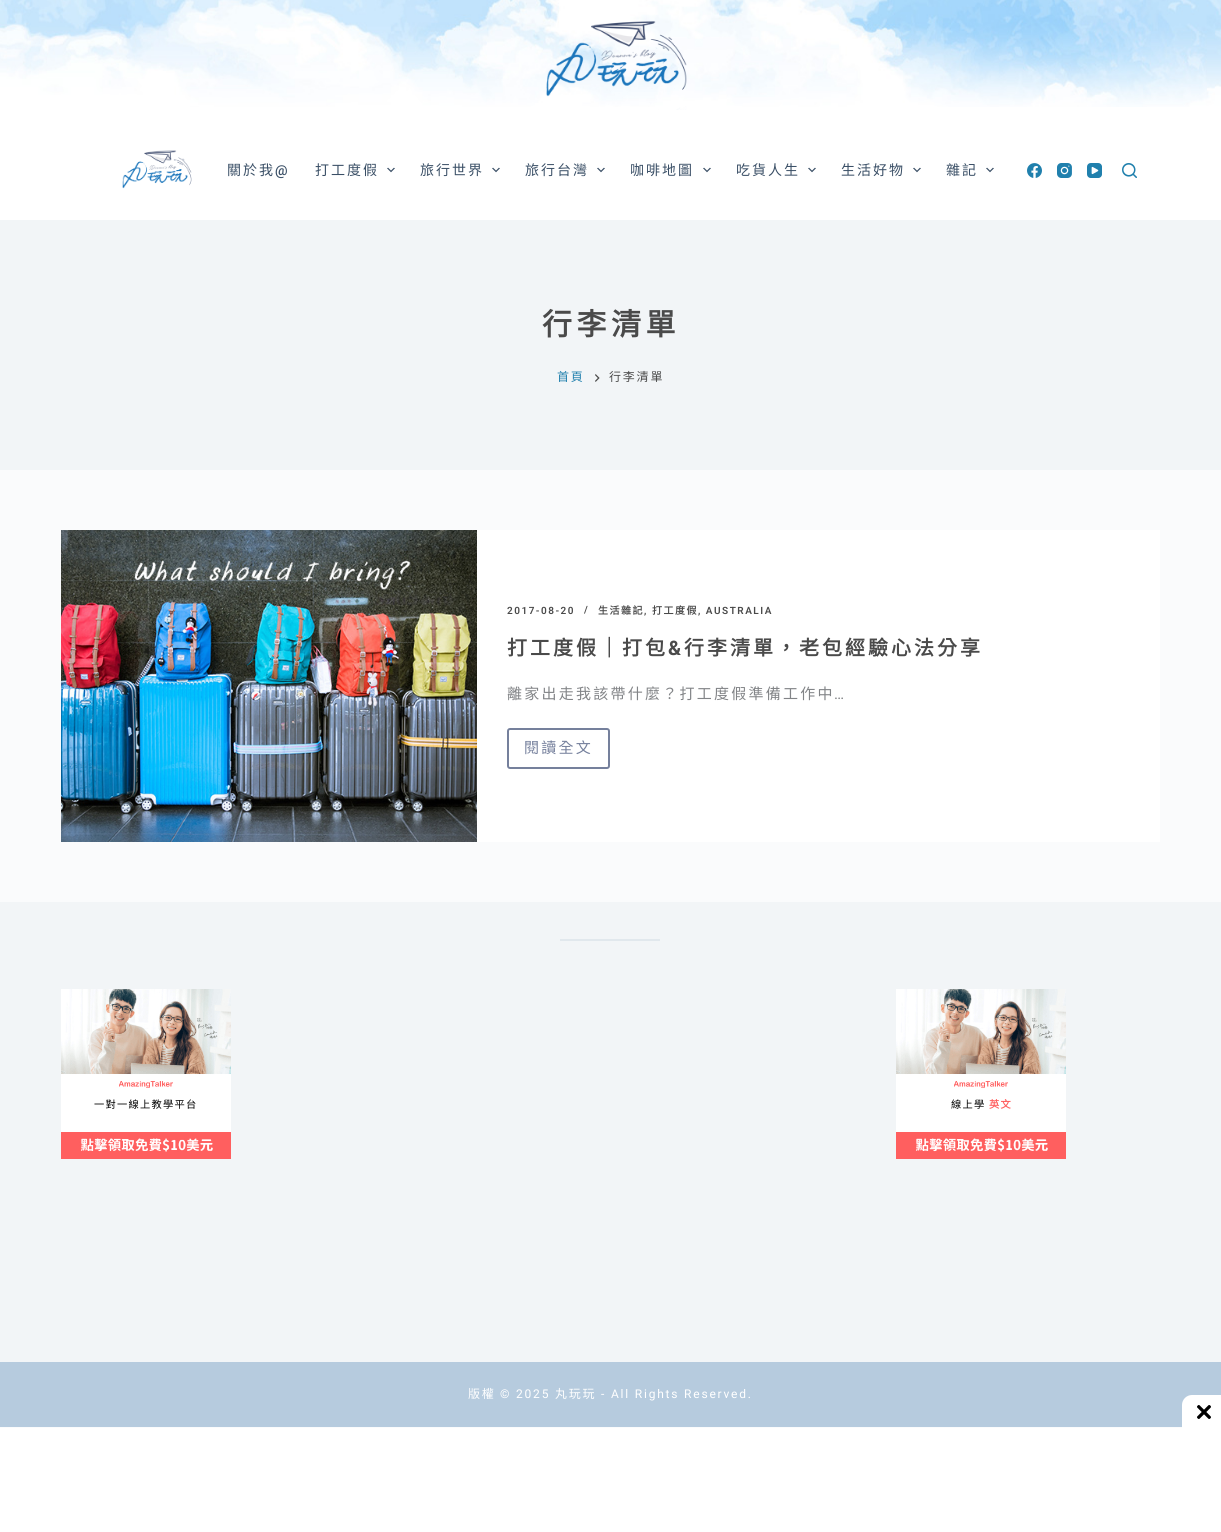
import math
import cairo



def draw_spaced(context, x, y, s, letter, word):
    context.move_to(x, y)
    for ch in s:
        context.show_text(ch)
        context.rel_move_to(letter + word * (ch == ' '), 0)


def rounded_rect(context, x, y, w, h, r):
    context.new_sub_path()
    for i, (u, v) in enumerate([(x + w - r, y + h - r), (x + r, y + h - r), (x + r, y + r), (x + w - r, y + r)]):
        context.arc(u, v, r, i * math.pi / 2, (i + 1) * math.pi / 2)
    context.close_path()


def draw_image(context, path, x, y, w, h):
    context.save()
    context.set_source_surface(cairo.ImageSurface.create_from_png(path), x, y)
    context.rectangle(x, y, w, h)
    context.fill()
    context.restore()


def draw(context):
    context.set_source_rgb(250 / 255, 251 / 255, 252 / 255)
    context.paint()
    draw_image(context, "images/1.png", 0, 0, 1221, 107)
    context.set_source_rgb(1, 1, 1)
    context.rectangle(0, 107, 1221, 113)
    context.fill()
    draw_image(context, "images/2.png", 546, 21, 141, 89)
    draw_image(context, "images/3.png", 122, 150, 70, 39)
    draw_image(context, "images/4.png", 387, 167, 8, 6)
    draw_image(context, "images/4.png", 492, 167, 8, 6)
    draw_image(context, "images/4.png", 597, 167, 8, 6)
    draw_image(context, "images/4.png", 703, 167, 8, 6)
    draw_image(context, "images/4.png", 808, 167, 8, 6)
    draw_image(context, "images/4.png", 913, 167, 8, 6)
    draw_image(context, "images/4.png", 986, 167, 8, 6)
    draw_image(context, "images/5.png", 1027, 163, 15, 15)
    draw_image(context, "images/6.png", 1057, 163, 15, 15)
    draw_image(context, "images/7.png", 1087, 163, 15, 15)
    draw_image(context, "images/8.png", 1122, 163, 15, 15)
    context.set_source_rgb(242 / 255, 245 / 255, 247 / 255)
    context.rectangle(0, 220, 1221, 250)
    context.fill()
    draw_image(context, "images/9.png", 595, 374, 5, 8)
    context.set_source_rgb(1, 1, 1)
    context.rectangle(477, 530, 683, 312)
    context.fill()
    draw_image(context, "images/10.png", 61, 530, 416, 312)
    rounded_rect(context, 508, 729, 101, 39, 2)
    context.set_source_rgb(117 / 255, 128 / 255, 156 / 255)
    context.stroke()
    context.set_source_rgb(242 / 255, 245 / 255, 247 / 255)
    context.rectangle(0, 902, 1221, 460)
    context.fill()
    context.set_source_rgb(225 / 255, 232 / 255, 237 / 255)
    context.rectangle(560, 939, 100, 2)
    context.fill()
    draw_image(context, "images/11.png", 61, 989, 170, 170)
    draw_image(context, "images/12.png", 896, 989, 170, 170)
    context.set_source_rgb(182 / 255, 203 / 255, 222 / 255)
    context.rectangle(0, 1362, 1221, 65)
    context.fill()
    context.set_source_rgb(1, 1, 1)
    context.rectangle(0, 1428, 1221, 104)
    context.fill()
    context.new_path()
    context.move_to(1192, 1395)
    context.line_to(1221, 1395)
    context.line_to(1221, 1432)
    context.line_to(1182, 1432)
    context.line_to(1182, 1405)
    context.curve_to(1182, 1399.5, 1186.5, 1395, 1192, 1395)
    context.close_path()
    context.fill()
    draw_image(context, "images/13.png", 1197, 1405, 14, 14)
    context.select_font_face("Noto Sans CJK TC")
    context.set_font_size(14)
    context.set_source_rgb(58 / 255, 79 / 255, 102 / 255)
    draw_spaced(context, 227, 175, "關於我", 2, 0)
    context.select_font_face("Roboto Medium")
    draw_spaced(context, 275, 175, "@", 2, 0)
    context.select_font_face("Noto Sans CJK TC")
    draw_spaced(context, 315, 175, "打工度假", 2, 0)
    draw_spaced(context, 420, 175, "旅行世界", 2, 0)
    draw_spaced(context, 525, 175, "旅行台灣", 2, 0)
    draw_spaced(context, 630, 175, "咖啡地圖", 2, 0)
    draw_spaced(context, 736, 175, "吃貨人生", 2, 0)
    draw_spaced(context, 841, 175, "生活好物", 2, 0)
    draw_spaced(context, 946, 175, "雜記", 2, 0)
    context.select_font_face("Noto Sans CJK TC", cairo.FontSlant.NORMAL, cairo.FontWeight.BOLD)
    context.set_font_size(30)
    context.set_source_rgb(74 / 255, 74 / 255, 74 / 255)
    draw_spaced(context, 542, 335, "行李清單", 4.5, 0)
    context.select_font_face("Noto Sans CJK TC")
    context.set_font_size(12)
    context.set_source_rgb(32 / 255, 128 / 255, 173 / 255)
    draw_spaced(context, 557, 381, "首頁", 1.8, 0)
    context.set_source_rgb(74 / 255, 74 / 255, 74 / 255)
    draw_spaced(context, 609, 381, "行李清單", 1.8, 0)
    context.select_font_face("Roboto SemiBold")
    context.set_font_size(10)
    draw_spaced(context, 507, 614, "2017-08-20", 1.5, 0)
    draw_spaced(context, 584, 613, "/", 1.5, 0)
    context.select_font_face("Noto Sans CJK TC", cairo.FontSlant.NORMAL, cairo.FontWeight.BOLD)
    draw_spaced(context, 598, 614, "生活雜記", 1.5, 0)
    context.select_font_face("Roboto SemiBold")
    draw_spaced(context, 644, 614, ",", 1.5, 0)
    context.select_font_face("Noto Sans CJK TC", cairo.FontSlant.NORMAL, cairo.FontWeight.BOLD)
    draw_spaced(context, 652, 614, "打工度假", 1.5, 0)
    context.select_font_face("Roboto SemiBold")
    draw_spaced(context, 698, 614, ", AUSTRALIA", 1.5, 0)
    context.select_font_face("Noto Sans CJK TC", cairo.FontSlant.NORMAL, cairo.FontWeight.BOLD)
    context.set_font_size(20)
    draw_spaced(context, 507, 655, "打工度假｜打包", 3, 0)
    context.select_font_face("Roboto", cairo.FontSlant.NORMAL, cairo.FontWeight.BOLD)
    draw_spaced(context, 668, 655, "&", 3, 0)
    context.select_font_face("Noto Sans CJK TC", cairo.FontSlant.NORMAL, cairo.FontWeight.BOLD)
    draw_spaced(context, 684, 655, "行李清單，老包經驗心法分享", 3, 0)
    context.select_font_face("Noto Sans CJK TC")
    context.set_font_size(15)
    context.set_source_rgb(130 / 255, 132 / 255, 135 / 255)
    draw_spaced(context, 507, 699, "離家出走我該帶什麼？打工度假準備工作中", 2.25, 0)
    context.select_font_face("Roboto")
    draw_spaced(context, 834, 699, "…", 2.25, 0)
    context.select_font_face("Noto Sans CJK TC")
    context.set_source_rgb(117 / 255, 128 / 255, 156 / 255)
    draw_spaced(context, 524, 753, "閱讀全文", 2.25, 0)
    context.set_font_size(10.25)
    context.set_source_rgb(0, 0, 0)
    draw_spaced(context, 94, 1108, "一對一線上教學平台", 1.25, 0)
    draw_spaced(context, 951, 1108, "線上學", 1.25, 0)
    context.select_font_face("Noto Sans CJK TC", cairo.FontSlant.NORMAL, cairo.FontWeight.BOLD)
    context.set_source_rgb(1, 95 / 255, 95 / 255)
    draw_spaced(context, 989, 1108, "英文", 1.25, 0)
    context.select_font_face("Noto Sans CJK TC")
    context.set_font_size(12)
    context.set_source_rgb(1, 1, 1)
    draw_spaced(context, 468, 1398, "版權", 1.8, 0)
    context.select_font_face("Roboto")
    draw_spaced(context, 500, 1398, "© 2025", 1.8, 0)
    context.select_font_face("Noto Sans CJK TC")
    draw_spaced(context, 555, 1398, "丸玩玩", 1.8, 0)
    context.select_font_face("Roboto")
    draw_spaced(context, 601, 1398, "- All Rights Reserved.", 1.8, 0)


surface = cairo.ImageSurface(cairo.Format.RGB24, 1221, 1532)
context = cairo.Context(surface)
options = cairo.FontOptions()
options.set_hint_metrics(cairo.HintMetrics.OFF)
options.set_hint_style(cairo.HintStyle.NONE)
context.set_font_options(options)
context.set_miter_limit(4)
draw(context)
surface.write_to_png("out.png")
